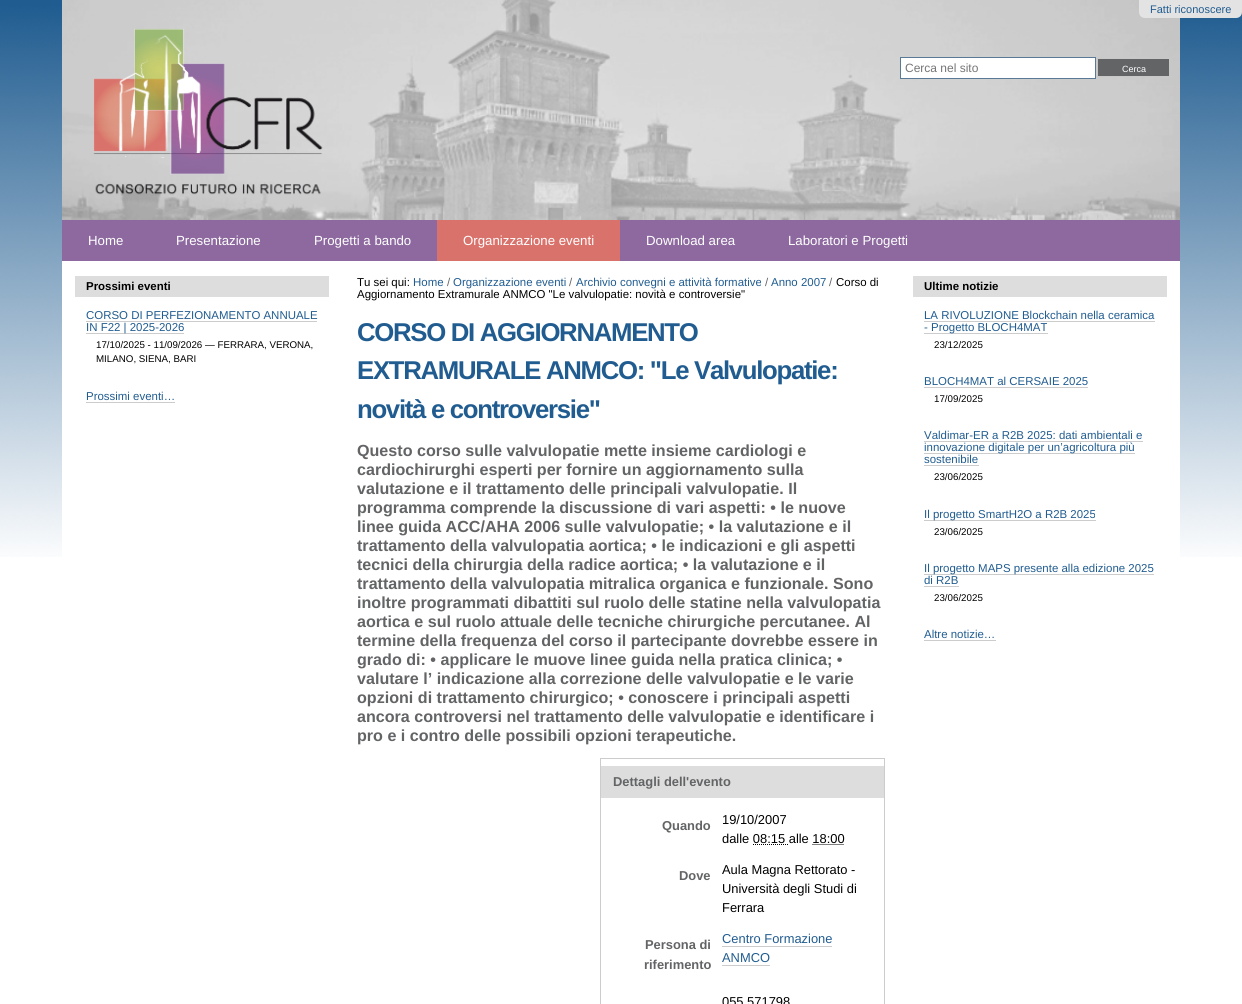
import math
import cairo



def draw_spaced(context, x, y, s, letter, word):
    context.move_to(x, y)
    for ch in s:
        context.show_text(ch)
        context.rel_move_to(letter + word * (ch == ' '), 0)


def draw_image(context, path, x, y, w, h):
    context.save()
    context.set_source_surface(cairo.ImageSurface.create_from_png(path), x, y)
    context.rectangle(x, y, w, h)
    context.fill()
    context.restore()


def draw(context):
    context.set_source_rgb(1, 1, 1)
    context.paint()
    draw_image(context, "images/1.png", 0, 0, 1242, 557)
    draw_image(context, "images/2.png", 62, 0, 1118, 220)
    context.set_source_rgb(227 / 255, 227 / 255, 227 / 255)
    context.new_path()
    context.move_to(1139, 0)
    context.line_to(1242, 0)
    context.line_to(1242, 12)
    context.curve_to(1242, 15.5, 1239.5, 18, 1236, 18)
    context.line_to(1145, 18)
    context.curve_to(1141.5, 18, 1139, 15.5, 1139, 12)
    context.close_path()
    context.fill()
    draw_image(context, "images/3.png", 93, 28, 230, 167)
    context.set_source_rgb(1, 1, 1)
    context.rectangle(900.5, 57.5, 195, 21)
    context.fill_preserve()
    context.set_source_rgb(89 / 255, 122 / 255, 151 / 255)
    context.set_line_width(1)
    context.stroke()
    context.set_source_rgb(99 / 255, 100 / 255, 102 / 255)
    context.rectangle(1097.5, 58.5, 72, 18)
    context.fill_preserve()
    context.set_source_rgb(200 / 255, 200 / 255, 201 / 255)
    context.stroke()
    context.set_source_rgb(141 / 255, 105 / 255, 159 / 255)
    context.rectangle(62, 220, 1118, 41)
    context.fill()
    context.set_source_rgb(218 / 255, 114 / 255, 108 / 255)
    context.rectangle(437, 220, 183, 41)
    context.fill()
    context.set_source_rgb(1, 1, 1)
    context.rectangle(62, 261, 1118, 296)
    context.fill()
    context.set_source_rgb(221 / 255, 221 / 255, 221 / 255)
    context.rectangle(75, 276, 254, 21)
    context.fill()
    context.set_source_rgb(204 / 255, 204 / 255, 204 / 255)
    context.rectangle(86, 321, 231, 1)
    context.fill()
    context.rectangle(86, 333, 98, 1)
    context.fill()
    context.rectangle(86, 402, 89, 1)
    context.fill()
    context.rectangle(600.5, 758.5, 284, 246)
    context.stroke()
    context.set_source_rgb(221 / 255, 221 / 255, 221 / 255)
    context.rectangle(601, 766, 283, 32)
    context.fill()
    context.new_path()
    context.move_to(753, 844.5)
    context.line_to(785, 844.5)
    context.set_source_rgb(0, 0, 0)
    context.set_dash([1, 1])
    context.stroke()
    context.new_path()
    context.move_to(785, 844.5)
    context.line_to(786, 844.5)
    context.move_to(787, 844.5)
    context.line_to(788, 844.5)
    context.set_dash([])
    context.stroke()
    context.new_path()
    context.move_to(812.5, 844.5)
    context.line_to(844.5, 844.5)
    context.set_dash([1, 1])
    context.stroke()
    context.set_source_rgb(204 / 255, 204 / 255, 204 / 255)
    context.rectangle(722, 946, 110, 1)
    context.fill()
    context.rectangle(722, 965, 48, 1)
    context.fill()
    context.set_source_rgb(221 / 255, 221 / 255, 221 / 255)
    context.rectangle(913, 276, 254, 21)
    context.fill()
    context.set_source_rgb(204 / 255, 204 / 255, 204 / 255)
    context.rectangle(924, 321, 231, 1)
    context.fill()
    context.rectangle(924, 333, 124, 1)
    context.fill()
    context.rectangle(924, 387, 164, 1)
    context.fill()
    context.rectangle(924, 441, 219, 1)
    context.fill()
    context.rectangle(924, 453, 211, 1)
    context.fill()
    context.rectangle(924, 465, 55, 1)
    context.fill()
    context.rectangle(924, 520, 172, 1)
    context.fill()
    context.rectangle(924, 574, 230, 1)
    context.fill()
    context.rectangle(924, 586, 35, 1)
    context.fill()
    context.rectangle(924, 640, 72, 1)
    context.fill()
    context.select_font_face("Liberation Sans")
    context.set_font_size(11)
    context.set_source_rgb(32 / 255, 92 / 255, 144 / 255)
    context.move_to(1150, 13)
    context.show_text("Fatti riconoscere")
    context.set_font_size(12)
    context.set_source_rgb(117 / 255, 117 / 255, 117 / 255)
    context.move_to(905, 72)
    context.show_text("Cerca nel sito")
    context.set_font_size(9)
    context.set_source_rgb(1, 1, 1)
    context.move_to(1122, 72)
    context.show_text("Cerca")
    context.set_font_size(13.25)
    context.move_to(88, 245)
    context.show_text("Home")
    context.move_to(176, 245)
    context.show_text("Presentazione")
    context.move_to(314, 245)
    context.show_text("Progetti a bando")
    context.move_to(463, 245)
    context.show_text("Organizzazione eventi")
    context.move_to(646, 245)
    context.show_text("Download area")
    context.move_to(788, 245)
    context.show_text("Laboratori e Progetti")
    context.select_font_face("Liberation Sans", cairo.FontSlant.NORMAL, cairo.FontWeight.BOLD)
    context.set_font_size(11.45)
    context.set_source_rgb(0, 0, 0)
    context.move_to(86, 290)
    context.show_text("Prossimi eventi")
    context.select_font_face("Liberation Sans")
    context.set_source_rgb(32 / 255, 92 / 255, 144 / 255)
    context.move_to(86, 319)
    context.show_text("CORSO DI PERFEZIONAMENTO ANNUALE")
    context.move_to(86, 331)
    context.show_text("IN F22 | 2025-2026")
    context.set_font_size(9.75)
    context.set_source_rgb(0, 0, 0)
    context.move_to(96, 348)
    context.show_text("17/10/2025 - 11/09/2026 — FERRARA, VERONA,")
    context.move_to(96, 362)
    context.show_text("MILANO, SIENA, BARI")
    context.set_font_size(11.45)
    context.set_source_rgb(32 / 255, 92 / 255, 144 / 255)
    context.move_to(86, 400)
    context.show_text("Prossimi eventi…")
    context.set_source_rgb(0, 0, 0)
    context.move_to(357, 286)
    context.show_text("Tu sei qui:")
    context.set_source_rgb(32 / 255, 92 / 255, 144 / 255)
    context.move_to(413, 286)
    context.show_text("Home")
    context.set_source_rgb(99 / 255, 100 / 255, 102 / 255)
    context.move_to(447, 286)
    context.show_text("/")
    context.set_source_rgb(32 / 255, 92 / 255, 144 / 255)
    context.move_to(453, 286)
    context.show_text("Organizzazione eventi")
    context.set_source_rgb(99 / 255, 100 / 255, 102 / 255)
    context.move_to(569, 286)
    context.show_text("/")
    context.set_source_rgb(32 / 255, 92 / 255, 144 / 255)
    context.move_to(576, 286)
    context.show_text("Archivio convegni e attività formative")
    context.set_source_rgb(99 / 255, 100 / 255, 102 / 255)
    context.move_to(765, 286)
    context.show_text("/")
    context.set_source_rgb(32 / 255, 92 / 255, 144 / 255)
    context.move_to(771, 286)
    context.show_text("Anno 2007")
    context.set_source_rgb(99 / 255, 100 / 255, 102 / 255)
    context.move_to(829, 286)
    context.show_text("/")
    context.set_source_rgb(0, 0, 0)
    context.move_to(836, 286)
    context.show_text("Corso di")
    context.move_to(357, 298)
    context.show_text("Aggiornamento Extramurale ANMCO \"Le valvulopatie: novità e controversie\"")
    context.select_font_face("Liberation Sans", cairo.FontSlant.NORMAL, cairo.FontWeight.BOLD)
    context.set_font_size(25.75)
    context.set_source_rgb(32 / 255, 92 / 255, 144 / 255)
    draw_spaced(context, 357, 341, "CORSO DI AGGIORNAMENTO", -1.3, 0)
    draw_spaced(context, 357, 379, "EXTRAMURALE ANMCO: \"Le Valvulopatie:", -1.3, 0)
    draw_spaced(context, 357, 418, "novità e controversie\"", -1.3, 0)
    context.set_font_size(16.1)
    context.set_source_rgb(99 / 255, 100 / 255, 102 / 255)
    context.move_to(357, 456)
    context.show_text("Questo corso sulle valvulopatie mette insieme cardiologi e")
    context.move_to(357, 475)
    context.show_text("cardiochirurghi esperti per fornire un aggiornamento sulla")
    context.move_to(357, 494)
    context.show_text("valutazione e il trattamento delle principali valvulopatie. Il")
    context.move_to(357, 513)
    context.show_text("programma comprende la discussione di vari aspetti: • le nuove")
    context.move_to(357, 532)
    context.show_text("linee guida ACC/AHA 2006 sulle valvulopatie; • la valutazione e il")
    context.move_to(357, 551)
    context.show_text("trattamento della valvulopatia aortica; • le indicazioni e gli aspetti")
    context.move_to(357, 570)
    context.show_text("tecnici della chirurgia della radice aortica; • la valutazione e il")
    context.move_to(357, 589)
    context.show_text("trattamento della valvulopatia mitralica organica e funzionale. Sono")
    context.move_to(357, 608)
    context.show_text("inoltre programmati dibattiti sul ruolo delle statine nella valvulopatia")
    context.move_to(357, 627)
    context.show_text("aortica e sul ruolo attuale delle tecniche chirurgiche percutanee. Al")
    context.move_to(357, 646)
    context.show_text("termine della frequenza del corso il partecipante dovrebbe essere in")
    context.move_to(357, 665)
    context.show_text("grado di: • applicare le muove linee guida nella pratica clinica; •")
    context.move_to(357, 684)
    context.show_text("valutare l’ indicazione alla correzione delle valvulopatie e le varie")
    context.move_to(357, 703)
    context.show_text("opzioni di trattamento chirurgico; • conoscere i principali aspetti")
    context.move_to(357, 722)
    context.show_text("ancora controversi nel trattamento delle valvulopatie e identificare i")
    context.move_to(357, 741)
    context.show_text("pro e i contro delle possibili opzioni terapeutiche.")
    context.set_font_size(12.9)
    context.move_to(613, 786)
    context.show_text("Dettagli dell'evento")
    context.move_to(662, 830)
    context.show_text("Quando")
    context.select_font_face("Liberation Sans")
    context.set_source_rgb(0, 0, 0)
    context.move_to(722, 824)
    context.show_text("19/10/2007")
    context.move_to(722, 843)
    context.show_text("dalle 08:15 alle 18:00")
    context.select_font_face("Liberation Sans", cairo.FontSlant.NORMAL, cairo.FontWeight.BOLD)
    context.set_source_rgb(99 / 255, 100 / 255, 102 / 255)
    context.move_to(679, 880)
    context.show_text("Dove")
    context.select_font_face("Liberation Sans")
    context.set_source_rgb(0, 0, 0)
    context.move_to(722, 874)
    context.show_text("Aula Magna Rettorato -")
    context.move_to(722, 893)
    context.show_text("Università degli Studi di")
    context.move_to(722, 912)
    context.show_text("Ferrara")
    context.select_font_face("Liberation Sans", cairo.FontSlant.NORMAL, cairo.FontWeight.BOLD)
    context.set_source_rgb(99 / 255, 100 / 255, 102 / 255)
    context.move_to(645, 949)
    context.show_text("Persona di")
    context.move_to(644, 969)
    context.show_text("riferimento")
    context.select_font_face("Liberation Sans")
    context.set_source_rgb(32 / 255, 92 / 255, 144 / 255)
    context.move_to(722, 943)
    context.show_text("Centro Formazione")
    context.move_to(722, 962)
    context.show_text("ANMCO")
    context.set_source_rgb(0, 0, 0)
    context.move_to(722, 1006)
    context.show_text("055 571798")
    context.select_font_face("Liberation Sans", cairo.FontSlant.NORMAL, cairo.FontWeight.BOLD)
    context.set_font_size(11.45)
    context.move_to(924, 290)
    context.show_text("Ultime notizie")
    context.select_font_face("Liberation Sans")
    context.set_source_rgb(32 / 255, 92 / 255, 144 / 255)
    context.move_to(924, 319)
    context.show_text("LA RIVOLUZIONE Blockchain nella ceramica")
    context.move_to(924, 331)
    context.show_text("- Progetto BLOCH4MAT")
    context.set_font_size(9.75)
    context.set_source_rgb(0, 0, 0)
    context.move_to(934, 348)
    context.show_text("23/12/2025")
    context.set_font_size(11.45)
    context.set_source_rgb(32 / 255, 92 / 255, 144 / 255)
    context.move_to(924, 385)
    context.show_text("BLOCH4MAT al CERSAIE 2025")
    context.set_font_size(9.75)
    context.set_source_rgb(0, 0, 0)
    context.move_to(934, 402)
    context.show_text("17/09/2025")
    context.set_font_size(11.45)
    context.set_source_rgb(32 / 255, 92 / 255, 144 / 255)
    context.move_to(924, 439)
    context.show_text("Valdimar-ER a R2B 2025: dati ambientali e")
    context.move_to(924, 451)
    context.show_text("innovazione digitale per un’agricoltura più")
    context.move_to(924, 463)
    context.show_text("sostenibile")
    context.set_font_size(9.75)
    context.set_source_rgb(0, 0, 0)
    context.move_to(934, 480)
    context.show_text("23/06/2025")
    context.set_font_size(11.45)
    context.set_source_rgb(32 / 255, 92 / 255, 144 / 255)
    context.move_to(924, 518)
    context.show_text("Il progetto SmartH2O a R2B 2025")
    context.set_font_size(9.75)
    context.set_source_rgb(0, 0, 0)
    context.move_to(934, 535)
    context.show_text("23/06/2025")
    context.set_font_size(11.45)
    context.set_source_rgb(32 / 255, 92 / 255, 144 / 255)
    context.move_to(924, 572)
    context.show_text("Il progetto MAPS presente alla edizione 2025")
    context.move_to(924, 584)
    context.show_text("di R2B")
    context.set_font_size(9.75)
    context.set_source_rgb(0, 0, 0)
    context.move_to(934, 601)
    context.show_text("23/06/2025")
    context.set_font_size(11.45)
    context.set_source_rgb(32 / 255, 92 / 255, 144 / 255)
    context.move_to(924, 638)
    context.show_text("Altre notizie…")


surface = cairo.ImageSurface(cairo.Format.RGB24, 1242, 1004)
context = cairo.Context(surface)
options = cairo.FontOptions()
options.set_hint_metrics(cairo.HintMetrics.OFF)
options.set_hint_style(cairo.HintStyle.NONE)
context.set_font_options(options)
context.set_miter_limit(4)
draw(context)
surface.write_to_png("out.png")
